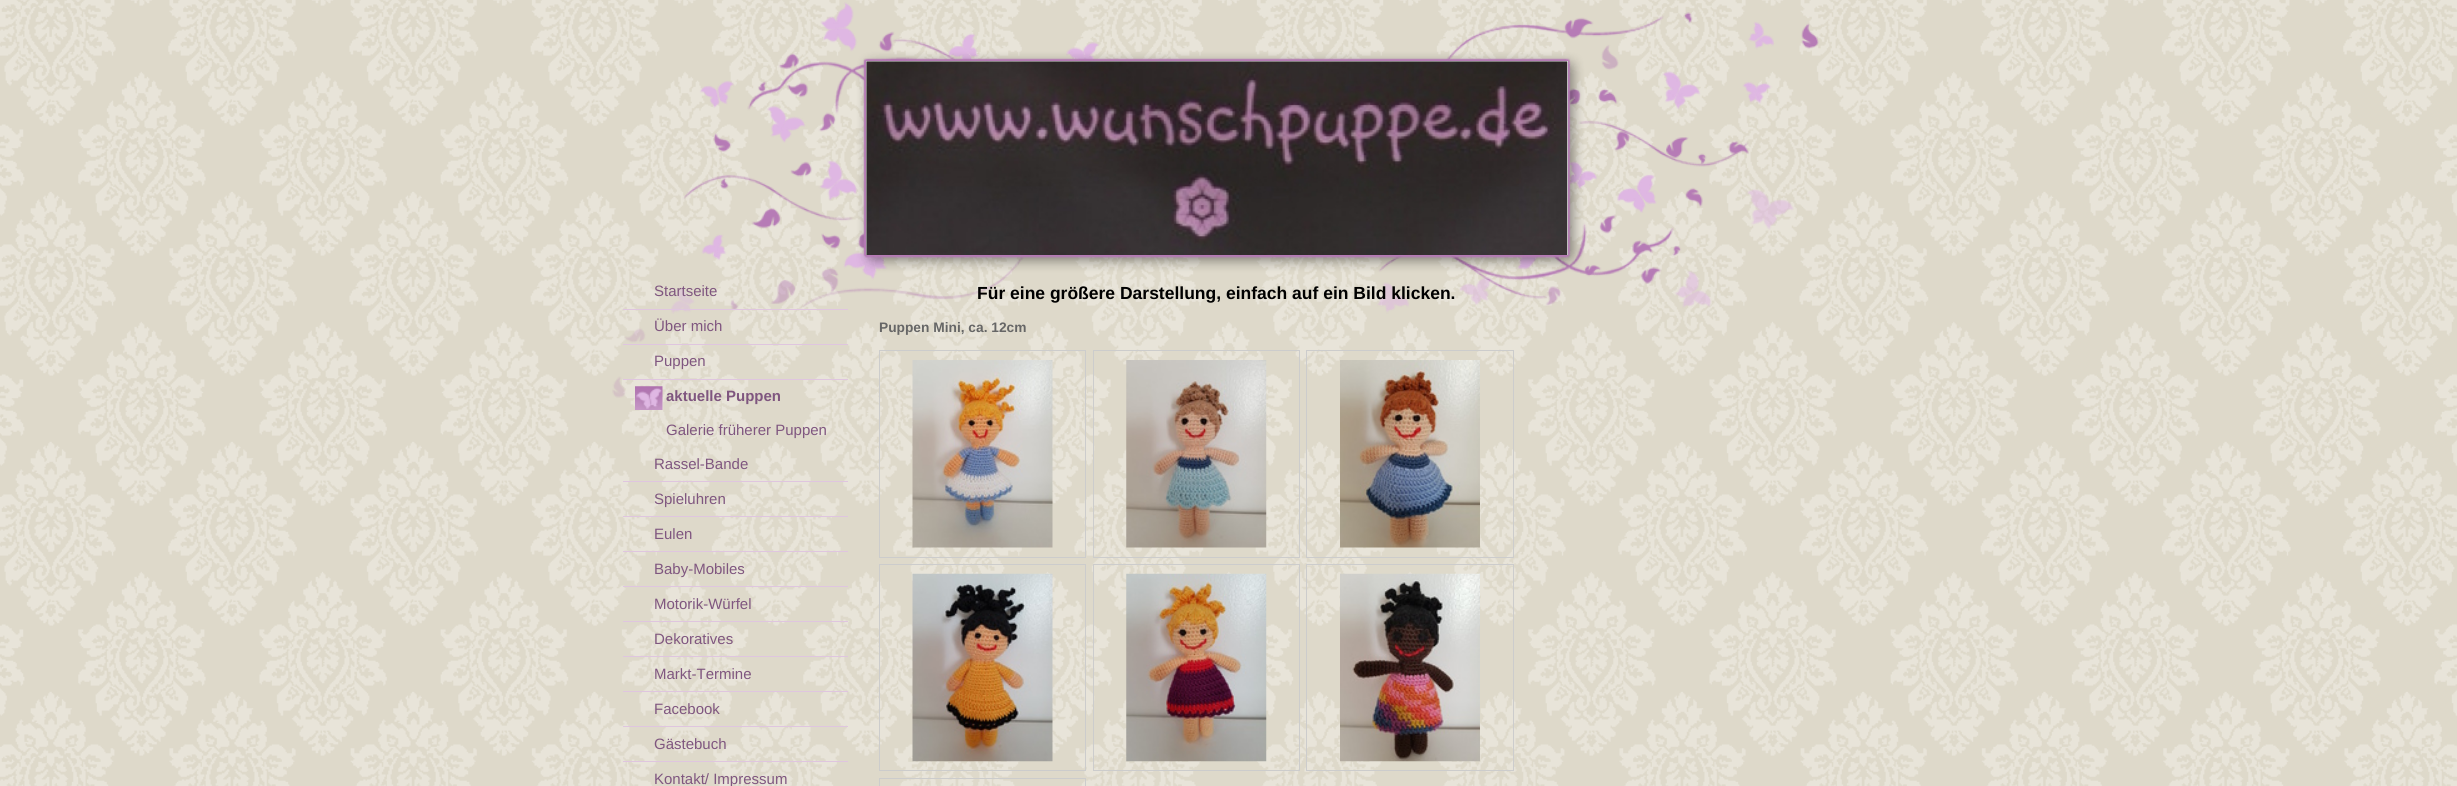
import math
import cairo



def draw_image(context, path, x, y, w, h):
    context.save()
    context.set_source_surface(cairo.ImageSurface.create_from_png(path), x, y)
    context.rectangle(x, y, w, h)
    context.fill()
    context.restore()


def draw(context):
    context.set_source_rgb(1, 1, 1)
    context.paint()
    draw_image(context, "images/1.png", 0, 0, 2457, 786)
    draw_image(context, "images/2.png", 612, 2, 1207, 396)
    context.set_source_rgb(238 / 255, 238 / 255, 238 / 255)
    context.rectangle(866, 61, 702, 194)
    context.fill()
    draw_image(context, "images/3.png", 866, 61, 702, 194)
    context.set_source_rgb(223 / 255, 197 / 255, 223 / 255)
    context.rectangle(623, 309, 225, 1)
    context.fill()
    context.rectangle(623, 344, 225, 1)
    context.fill()
    context.rectangle(623, 379, 225, 1)
    context.fill()
    draw_image(context, "images/4.png", 635, 386, 28, 24)
    context.rectangle(623, 481, 225, 1)
    context.fill()
    context.rectangle(623, 516, 225, 1)
    context.fill()
    context.rectangle(623, 551, 225, 1)
    context.fill()
    context.rectangle(623, 586, 225, 1)
    context.fill()
    context.rectangle(623, 621, 225, 1)
    context.fill()
    context.rectangle(623, 656, 225, 1)
    context.fill()
    context.rectangle(623, 691, 225, 1)
    context.fill()
    context.rectangle(623, 726, 225, 1)
    context.fill()
    context.rectangle(623, 761, 225, 1)
    context.fill()
    context.rectangle(879.5, 350.5, 206, 207)
    context.set_source_rgb(204 / 255, 204 / 255, 204 / 255)
    context.set_line_width(1)
    context.stroke()
    draw_image(context, "images/5.png", 912, 360, 141, 188)
    context.rectangle(1093.5, 350.5, 206, 207)
    context.stroke()
    draw_image(context, "images/6.png", 1126, 360, 141, 188)
    context.rectangle(1306.5, 350.5, 207, 207)
    context.stroke()
    draw_image(context, "images/7.png", 1340, 360, 140, 188)
    context.rectangle(879.5, 564.5, 206, 206)
    context.stroke()
    draw_image(context, "images/8.png", 912, 573, 141, 189)
    context.rectangle(1093.5, 564.5, 206, 206)
    context.stroke()
    draw_image(context, "images/9.png", 1126, 573, 141, 189)
    context.rectangle(1306.5, 564.5, 207, 206)
    context.stroke()
    draw_image(context, "images/10.png", 1340, 573, 140, 189)
    context.rectangle(879.5, 778.5, 206, 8)
    context.stroke()
    context.select_font_face("Liberation Sans")
    context.set_font_size(15)
    context.set_source_rgb(127 / 255, 86 / 255, 127 / 255)
    context.move_to(654, 296)
    context.show_text("Startseite")
    context.move_to(654, 331)
    context.show_text("Über mich")
    context.move_to(654, 366)
    context.show_text("Puppen")
    context.select_font_face("Liberation Sans", cairo.FontSlant.NORMAL, cairo.FontWeight.BOLD)
    context.move_to(666, 401)
    context.show_text("aktuelle Puppen")
    context.select_font_face("Liberation Sans")
    context.move_to(666, 435)
    context.show_text("Galerie früherer Puppen")
    context.move_to(654, 469)
    context.show_text("Rassel-Bande")
    context.move_to(654, 504)
    context.show_text("Spieluhren")
    context.move_to(654, 539)
    context.show_text("Eulen")
    context.move_to(654, 574)
    context.show_text("Baby-Mobiles")
    context.move_to(654, 609)
    context.show_text("Motorik-Würfel")
    context.move_to(654, 644)
    context.show_text("Dekoratives")
    context.move_to(654, 679)
    context.show_text("Markt-Termine")
    context.move_to(654, 714)
    context.show_text("Facebook")
    context.move_to(654, 749)
    context.show_text("Gästebuch")
    context.move_to(654, 784)
    context.show_text("Kontakt/ Impressum")
    context.select_font_face("Liberation Sans", cairo.FontSlant.NORMAL, cairo.FontWeight.BOLD)
    context.set_font_size(17.5)
    context.set_source_rgb(0, 0, 0)
    context.move_to(977, 299)
    context.show_text("Für eine größere Darstellung, einfach auf ein Bild klicken.")
    context.set_font_size(13.75)
    context.set_source_rgb(102 / 255, 102 / 255, 102 / 255)
    context.move_to(879, 332)
    context.show_text("Puppen Mini, ca. 12cm")


surface = cairo.ImageSurface(cairo.Format.RGB24, 2457, 786)
context = cairo.Context(surface)
options = cairo.FontOptions()
options.set_hint_metrics(cairo.HintMetrics.OFF)
options.set_hint_style(cairo.HintStyle.NONE)
context.set_font_options(options)
context.set_miter_limit(4)
draw(context)
surface.write_to_png("out.png")
